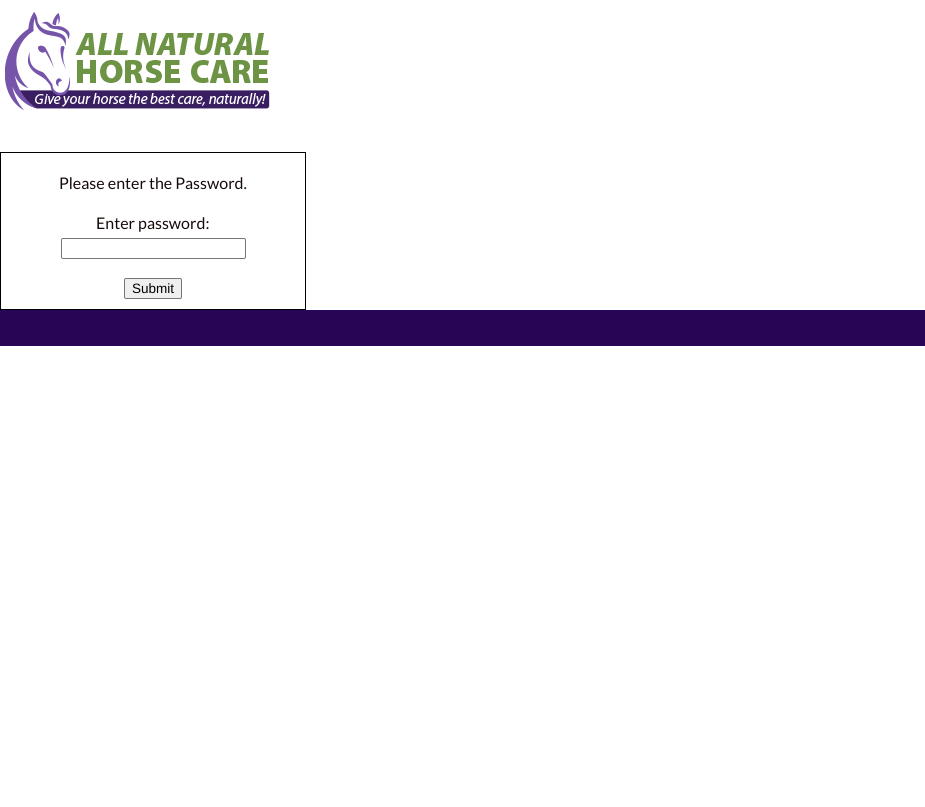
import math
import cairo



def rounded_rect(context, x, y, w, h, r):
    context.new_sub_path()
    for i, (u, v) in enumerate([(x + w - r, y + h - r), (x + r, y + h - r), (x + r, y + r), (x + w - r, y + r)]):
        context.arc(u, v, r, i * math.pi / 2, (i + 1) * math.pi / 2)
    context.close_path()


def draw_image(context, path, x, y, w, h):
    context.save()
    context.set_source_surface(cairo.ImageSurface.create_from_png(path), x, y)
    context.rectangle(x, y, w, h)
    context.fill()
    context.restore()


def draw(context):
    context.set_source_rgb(1, 1, 1)
    context.paint()
    draw_image(context, "images/1.png", 5, 12, 265, 98)
    context.rectangle(0.5, 152.5, 305, 157)
    context.set_source_rgb(0, 0, 0)
    context.set_line_width(1)
    context.stroke()
    rounded_rect(context, 61.5, 238.5, 184, 20, 1.5)
    context.set_source_rgb(118 / 255, 118 / 255, 118 / 255)
    context.stroke()
    context.set_source_rgb(239 / 255, 239 / 255, 239 / 255)
    rounded_rect(context, 124.5, 278.5, 57, 20, 1.5)
    context.fill_preserve()
    context.set_source_rgb(118 / 255, 118 / 255, 118 / 255)
    context.stroke()
    context.set_source_rgb(40 / 255, 5 / 255, 85 / 255)
    context.rectangle(0, 310, 925, 36)
    context.fill()
    context.select_font_face("Lato")
    context.set_font_size(16)
    context.set_source_rgb(22 / 255, 10 / 255, 10 / 255)
    context.move_to(59, 189)
    context.show_text("Please enter the Password.")
    context.move_to(96, 229)
    context.show_text("Enter password:")
    context.select_font_face("Liberation Sans")
    context.set_font_size(13.5)
    context.set_source_rgb(0, 0, 0)
    context.move_to(132, 293)
    context.show_text("Submit")


surface = cairo.ImageSurface(cairo.Format.RGB24, 925, 807)
context = cairo.Context(surface)
options = cairo.FontOptions()
options.set_hint_metrics(cairo.HintMetrics.OFF)
options.set_hint_style(cairo.HintStyle.NONE)
context.set_font_options(options)
context.set_miter_limit(4)
draw(context)
surface.write_to_png("out.png")
